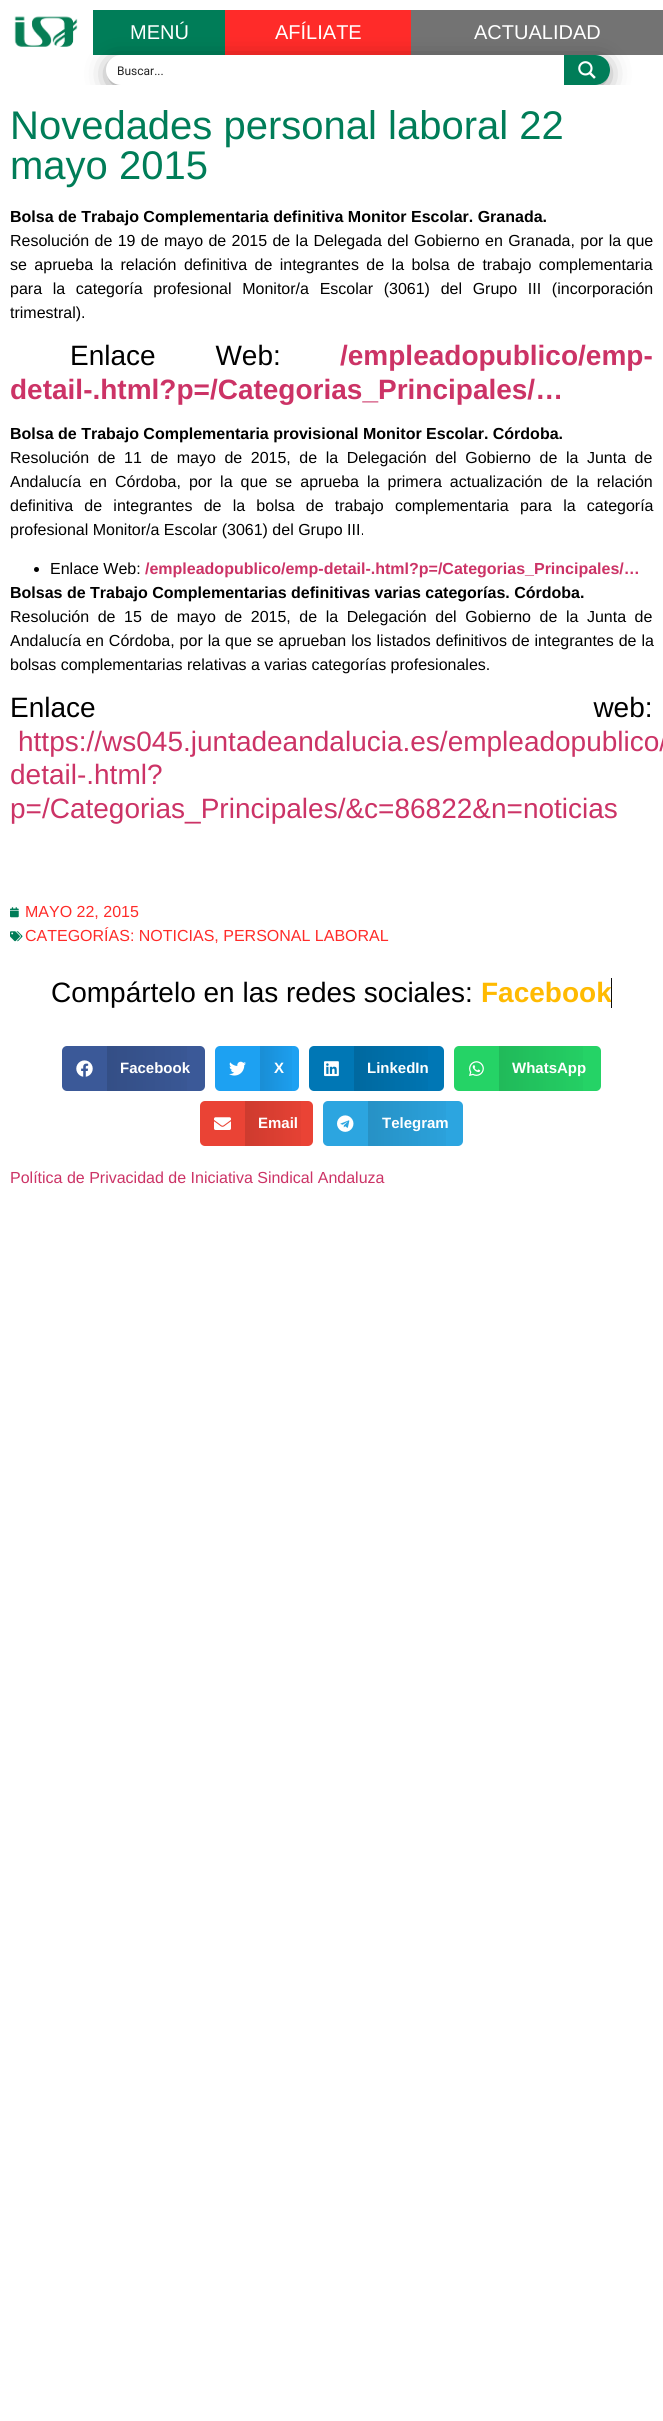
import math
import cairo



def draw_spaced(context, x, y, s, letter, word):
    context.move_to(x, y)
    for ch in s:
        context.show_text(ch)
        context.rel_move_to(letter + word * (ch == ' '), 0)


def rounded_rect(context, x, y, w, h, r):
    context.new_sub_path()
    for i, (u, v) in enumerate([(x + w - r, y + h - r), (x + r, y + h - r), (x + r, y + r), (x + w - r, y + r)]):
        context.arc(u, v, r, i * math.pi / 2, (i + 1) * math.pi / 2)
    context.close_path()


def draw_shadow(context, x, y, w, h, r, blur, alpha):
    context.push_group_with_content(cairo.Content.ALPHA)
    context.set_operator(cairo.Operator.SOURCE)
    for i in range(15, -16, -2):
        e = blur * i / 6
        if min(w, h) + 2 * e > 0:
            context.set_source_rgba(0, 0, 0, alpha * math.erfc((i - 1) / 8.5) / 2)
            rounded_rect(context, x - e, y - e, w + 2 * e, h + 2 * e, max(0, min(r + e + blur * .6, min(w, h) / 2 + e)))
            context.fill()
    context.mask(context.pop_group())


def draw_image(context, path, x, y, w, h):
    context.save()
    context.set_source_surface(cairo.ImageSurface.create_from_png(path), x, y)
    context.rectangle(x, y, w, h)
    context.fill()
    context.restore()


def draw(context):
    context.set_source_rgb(1, 1, 1)
    context.paint()
    draw_image(context, "images/1.png", 14, 16, 64, 31)
    context.set_source_rgb(0, 125 / 255, 88 / 255)
    context.rectangle(93, 10, 132, 45)
    context.fill()
    context.set_source_rgb(1, 43 / 255, 41 / 255)
    context.rectangle(225, 10, 186, 45)
    context.fill()
    context.set_source_rgb(115 / 255, 115 / 255, 115 / 255)
    context.rectangle(411, 10, 252, 45)
    context.fill()
    context.save()
    context.rectangle(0, 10, 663, 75)
    context.clip()
    context.set_source_rgb(0, 0, 0)
    draw_shadow(context, 119, 72, 478, 4, 2, 14, 1)
    context.restore()
    context.set_source_rgb(1, 1, 1)
    rounded_rect(context, 106, 55, 504, 30, 15)
    context.fill()
    context.set_source_rgb(0, 125 / 255, 88 / 255)
    context.new_path()
    context.move_to(564, 55)
    context.line_to(595, 55)
    context.curve_to(603.5, 55, 610, 61.5, 610, 70)
    context.curve_to(610, 78.5, 603.5, 85, 595, 85)
    context.line_to(564, 85)
    context.close_path()
    context.fill()
    draw_image(context, "images/2.png", 578, 61, 18, 18)
    context.set_source_rgb(0, 0, 0)
    context.arc(36.5, 569.5, 2.5, 0, 2 * math.pi)
    context.fill()
    draw_image(context, "images/3.png", 10, 907, 9, 11)
    draw_image(context, "images/4.png", 10, 931, 13, 11)
    context.set_source_rgb(59 / 255, 89 / 255, 152 / 255)
    rounded_rect(context, 62, 1046, 143, 45, 5)
    context.fill()
    draw_image(context, "images/5.png", 76, 1060, 17, 17)
    gradient = cairo.LinearGradient(107, 1069, 205, 1069)
    gradient.add_color_stop_rgba(0, 0, 0, 0, 0.12)
    gradient.add_color_stop_rgba(1, 0, 0, 0, 0)
    context.set_source(gradient)
    context.rectangle(107, 1046, 80, 45)
    context.fill()
    context.set_source_rgb(29 / 255, 161 / 255, 242 / 255)
    rounded_rect(context, 215, 1046, 84, 45, 5)
    context.fill()
    draw_image(context, "images/6.png", 229, 1061, 17, 15)
    gradient = cairo.LinearGradient(260, 1069, 299, 1069)
    gradient.add_color_stop_rgba(0, 0, 0, 0, 0.12)
    gradient.add_color_stop_rgba(1, 0, 0, 0, 0)
    context.set_source(gradient)
    context.rectangle(260, 1046, 32, 45)
    context.fill()
    context.set_source_rgb(0, 119 / 255, 181 / 255)
    rounded_rect(context, 309, 1046, 135, 45, 5)
    context.fill()
    draw_image(context, "images/7.png", 324, 1061, 15, 16)
    gradient = cairo.LinearGradient(354, 1069, 444, 1069)
    gradient.add_color_stop_rgba(0, 0, 0, 0, 0.12)
    gradient.add_color_stop_rgba(1, 0, 0, 0, 0)
    context.set_source(gradient)
    context.rectangle(354, 1046, 74, 45)
    context.fill()
    context.set_source_rgb(37 / 255, 211 / 255, 102 / 255)
    rounded_rect(context, 454, 1046, 147, 45, 5)
    context.fill()
    draw_image(context, "images/8.png", 469, 1061, 15, 15)
    gradient = cairo.LinearGradient(499, 1069, 601, 1069)
    gradient.add_color_stop_rgba(0, 0, 0, 0, 0.12)
    gradient.add_color_stop_rgba(1, 0, 0, 0, 0)
    context.set_source(gradient)
    context.rectangle(499, 1046, 84, 45)
    context.fill()
    context.set_source_rgb(234 / 255, 67 / 255, 53 / 255)
    rounded_rect(context, 200, 1101, 113, 45, 5)
    context.fill()
    draw_image(context, "images/9.png", 214, 1117, 17, 13)
    gradient = cairo.LinearGradient(245, 1124, 313, 1124)
    gradient.add_color_stop_rgba(0, 0, 0, 0, 0.12)
    gradient.add_color_stop_rgba(1, 0, 0, 0, 0)
    context.set_source(gradient)
    context.rectangle(245, 1101, 56, 45)
    context.fill()
    context.set_source_rgb(44 / 255, 165 / 255, 224 / 255)
    rounded_rect(context, 323, 1101, 140, 45, 5)
    context.fill()
    draw_image(context, "images/10.png", 337, 1115, 17, 17)
    gradient = cairo.LinearGradient(368, 1124, 463, 1124)
    gradient.add_color_stop_rgba(0, 0, 0, 0, 0.12)
    gradient.add_color_stop_rgba(1, 0, 0, 0, 0)
    context.set_source(gradient)
    context.rectangle(368, 1101, 78, 45)
    context.fill()
    context.select_font_face("Liberation Sans")
    context.set_font_size(20)
    context.set_source_rgb(1, 1, 1)
    context.move_to(130, 39)
    context.show_text("MENÚ")
    context.move_to(275, 39)
    context.show_text("AFÍLIATE")
    context.move_to(474, 39)
    context.show_text("ACTUALIDAD")
    context.select_font_face("Roboto")
    context.set_font_size(12)
    context.set_source_rgb(38 / 255, 38 / 255, 38 / 255)
    context.move_to(117, 75)
    context.show_text("Buscar...")
    context.select_font_face("Liberation Sans")
    context.set_font_size(40)
    context.set_source_rgb(0, 125 / 255, 88 / 255)
    context.move_to(10, 139)
    context.show_text("Novedades personal laboral 22")
    context.move_to(10, 179)
    context.show_text("mayo 2015")
    context.select_font_face("Liberation Sans", cairo.FontSlant.NORMAL, cairo.FontWeight.BOLD)
    context.set_font_size(16)
    context.set_source_rgb(0, 0, 0)
    context.move_to(10, 222)
    context.show_text("Bolsa de Trabajo Complementaria definitiva Monitor Escolar. Granada.")
    context.select_font_face("Liberation Sans")
    draw_spaced(context, 10, 246, "Resolución de 19 de mayo de 2015 de la Delegada del Gobierno en Granada, por la que", 0, 0.9)
    draw_spaced(context, 10, 270, "se aprueba la relación definitiva de integrantes de la bolsa de trabajo complementaria", 0, 3)
    draw_spaced(context, 10, 294, "para la categoría profesional Monitor/a Escolar (3061) del Grupo III (incorporación", 0, 6.25)
    context.move_to(10, 318)
    context.show_text("trimestral).")
    context.set_font_size(28)
    draw_spaced(context, 70, 365, "Enlace Web:", 0, 52)
    context.select_font_face("Liberation Sans", cairo.FontSlant.NORMAL, cairo.FontWeight.BOLD)
    context.set_source_rgb(204 / 255, 51 / 255, 102 / 255)
    context.move_to(340, 365)
    context.show_text("/empleadopublico/emp-")
    context.move_to(10, 399)
    context.show_text("detail-.html?p=/Categorias_Principales/…")
    context.set_font_size(16)
    context.set_source_rgb(0, 0, 0)
    context.move_to(10, 439)
    context.show_text("Bolsa de Trabajo Complementaria provisional Monitor Escolar. Córdoba.")
    context.select_font_face("Liberation Sans")
    draw_spaced(context, 10, 463, "Resolución de 11 de mayo de 2015, de la Delegación del Gobierno de la Junta de", 0, 4.1)
    draw_spaced(context, 10, 487, "Andalucía en Córdoba, por la que se aprueba la primera actualización de la relación", 0, 3.6)
    draw_spaced(context, 10, 511, "definitiva de integrantes de la bolsa de trabajo complementaria para la categoría", 0, 6.75)
    context.move_to(10, 535)
    context.show_text("profesional Monitor/a Escolar (3061) del Grupo III.")
    context.move_to(50, 574)
    context.show_text("Enlace Web:")
    context.select_font_face("Liberation Sans", cairo.FontSlant.NORMAL, cairo.FontWeight.BOLD)
    context.set_source_rgb(204 / 255, 51 / 255, 102 / 255)
    context.move_to(145, 574)
    context.show_text("/empleadopublico/emp-detail-.html?p=/Categorias_Principales/…")
    context.set_source_rgb(0, 0, 0)
    context.move_to(10, 598)
    context.show_text("Bolsas de Trabajo Complementarias definitivas varias categorías. Córdoba.")
    context.select_font_face("Liberation Sans")
    draw_spaced(context, 10, 622, "Resolución de 15 de mayo de 2015, de la Delegación del Gobierno de la Junta de", 0, 4.1)
    draw_spaced(context, 10, 646, "Andalucía en Córdoba, por la que se aprueban los listados definitivos de integrantes de la", 0, 0.5)
    context.move_to(10, 670)
    context.show_text("bolsas complementarias relativas a varias categorías profesionales.")
    context.set_font_size(28)
    draw_spaced(context, 10, 717, "Enlace web:", 0, 490)
    context.set_source_rgb(204 / 255, 51 / 255, 102 / 255)
    context.move_to(18, 751)
    context.show_text("https://ws045.juntadeandalucia.es/empleadopublico/")
    context.move_to(10, 784)
    context.show_text("detail-.html?")
    context.move_to(10, 818)
    context.show_text("p=/Categorias_Principales/&c=86822&n=noticias")
    context.set_font_size(16)
    context.set_source_rgb(1, 43 / 255, 41 / 255)
    context.move_to(25, 917)
    context.show_text("MAYO 22, 2015")
    context.move_to(25, 941)
    context.show_text("CATEGORÍAS: NOTICIAS, PERSONAL LABORAL")
    context.set_font_size(28)
    context.set_source_rgb(0, 0, 0)
    context.move_to(51, 1002)
    context.show_text("Compártelo en las redes sociales:")
    context.select_font_face("Liberation Sans", cairo.FontSlant.NORMAL, cairo.FontWeight.BOLD)
    context.set_source_rgb(1, 186 / 255, 1 / 255)
    context.move_to(481, 1002)
    context.show_text("Facebook")
    context.set_source_rgb(13 / 255, 13 / 255, 13 / 255)
    context.rectangle(611, 978, 1, 30)
    context.fill()
    context.set_font_size(15)
    context.set_source_rgb(1, 1, 1)
    context.move_to(120, 1073)
    context.show_text("Facebook")
    context.move_to(274, 1073)
    context.show_text("X")
    context.move_to(367, 1073)
    context.show_text("LinkedIn")
    context.move_to(512, 1073)
    context.show_text("WhatsApp")
    context.move_to(258, 1128)
    context.show_text("Email")
    context.move_to(382, 1128)
    context.show_text("Telegram")
    context.select_font_face("Liberation Sans")
    context.set_font_size(16)
    context.set_source_rgb(204 / 255, 51 / 255, 102 / 255)
    context.move_to(10, 1183)
    context.show_text("Política de Privacidad de Iniciativa Sindical Andaluza")


surface = cairo.ImageSurface(cairo.Format.RGB24, 663, 2421)
context = cairo.Context(surface)
options = cairo.FontOptions()
options.set_hint_metrics(cairo.HintMetrics.OFF)
options.set_hint_style(cairo.HintStyle.NONE)
context.set_font_options(options)
context.set_miter_limit(4)
draw(context)
surface.write_to_png("out.png")
